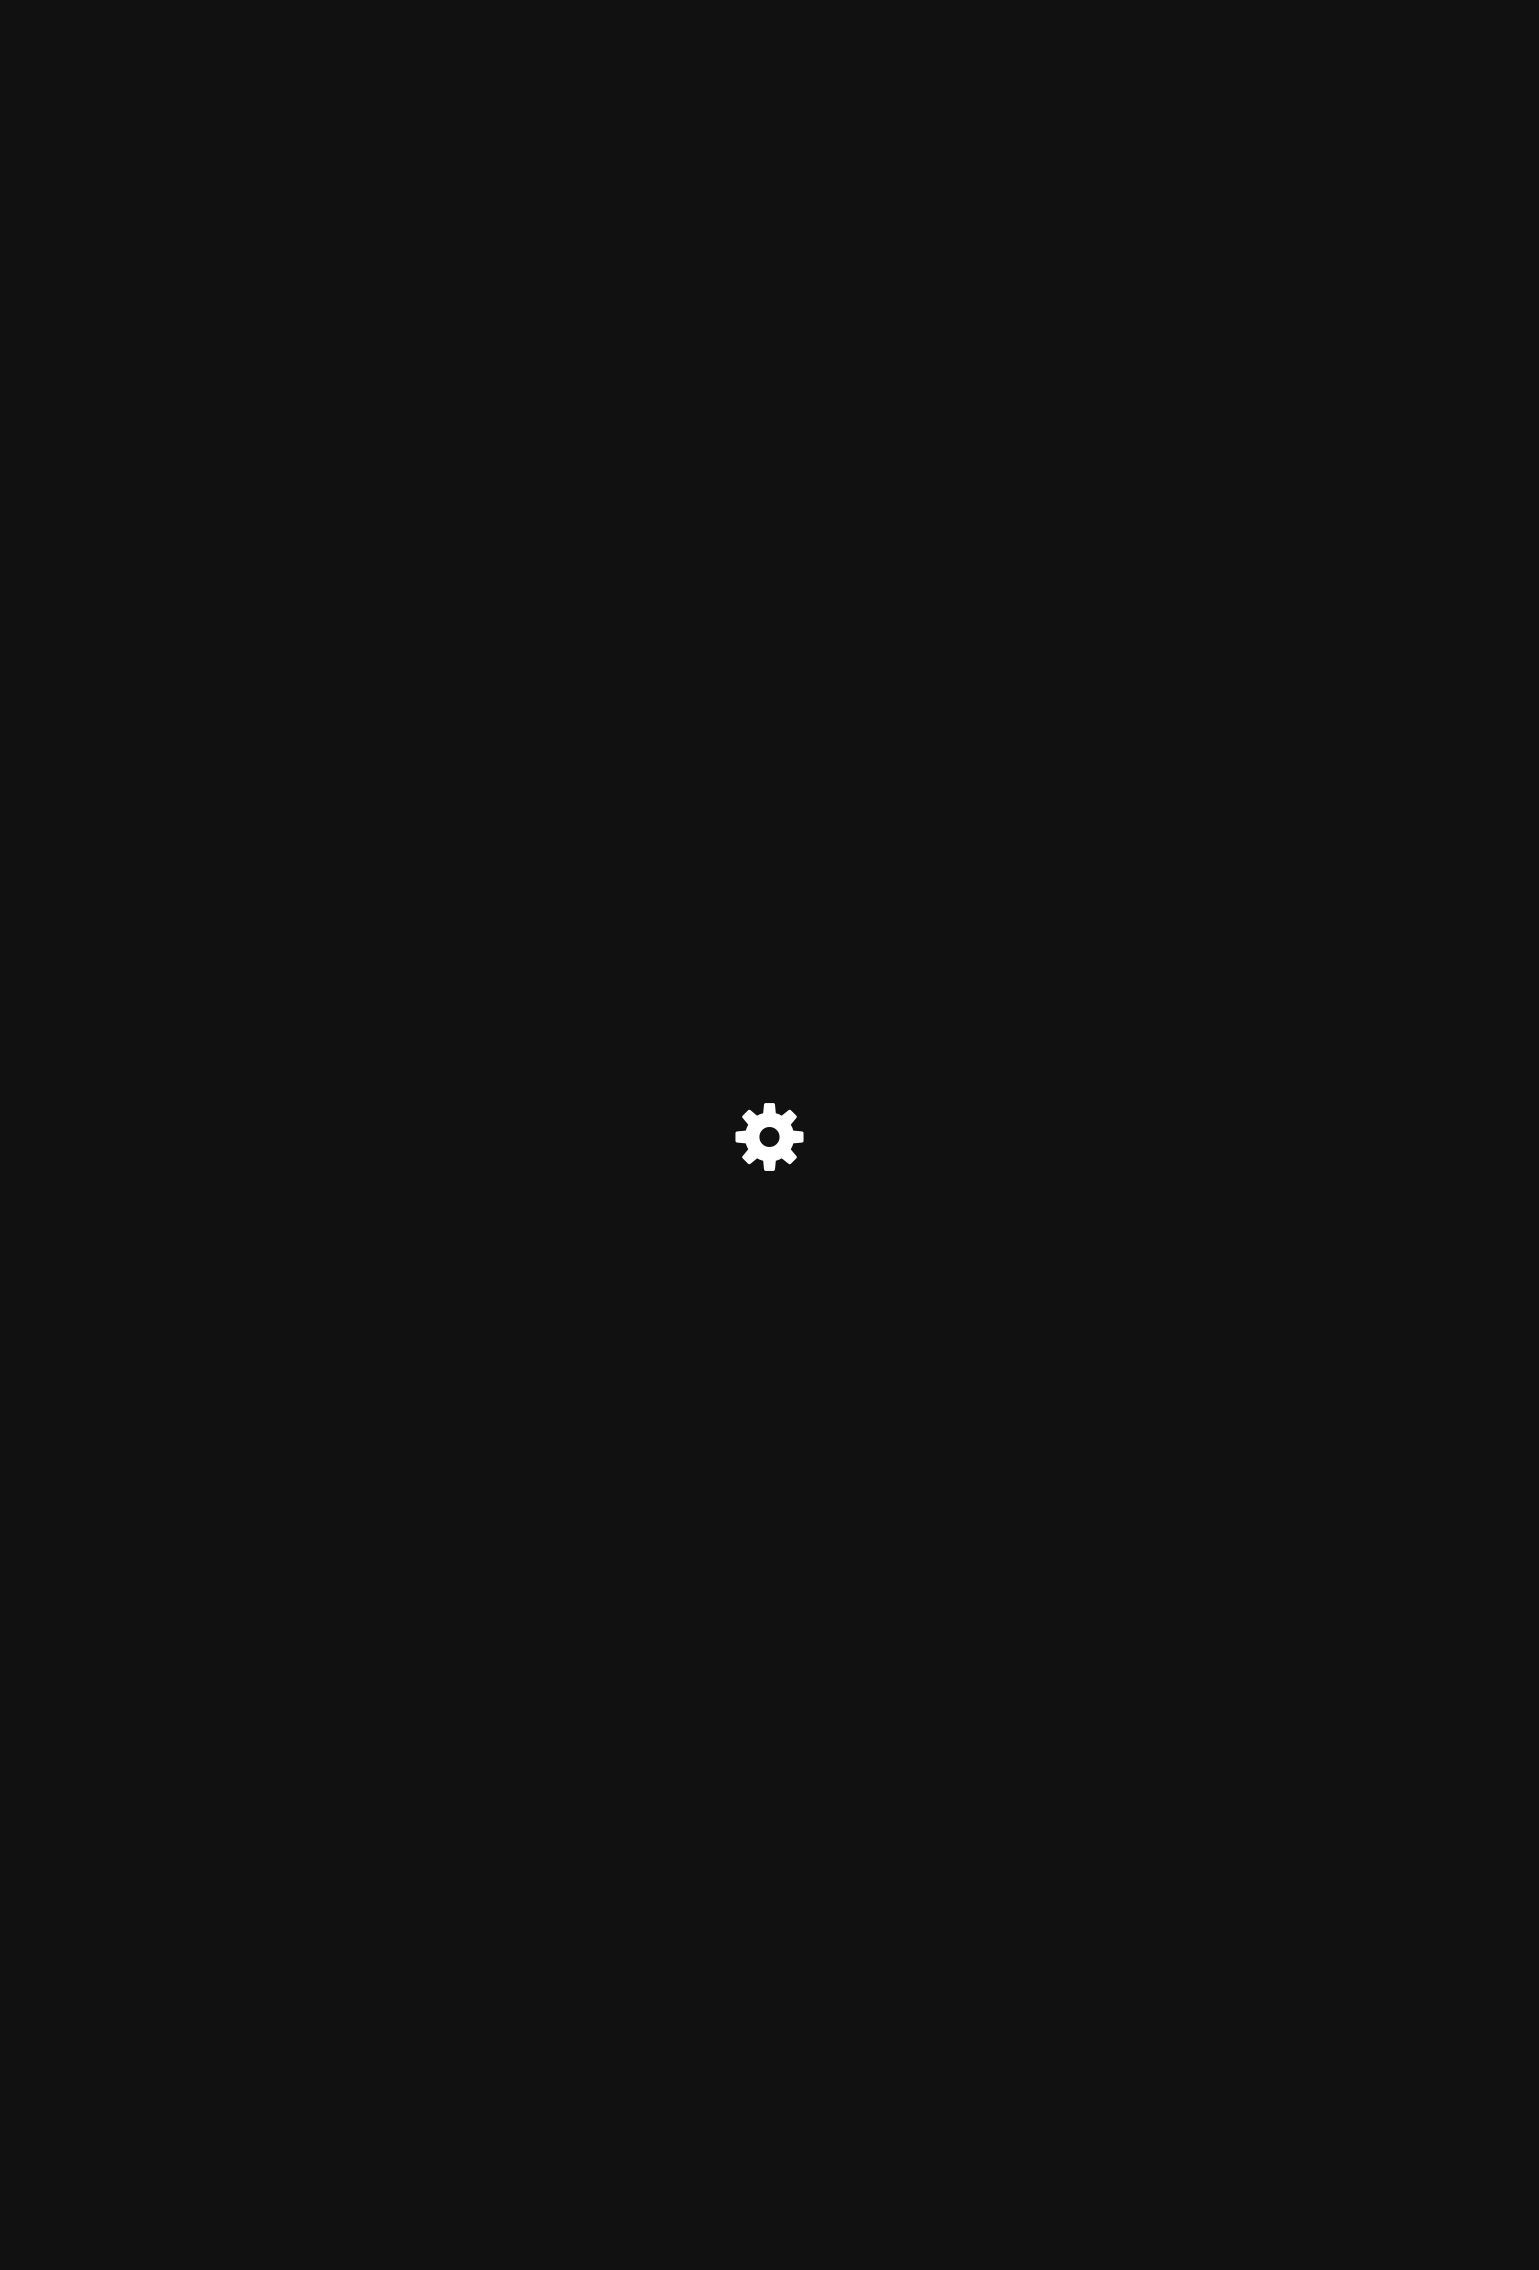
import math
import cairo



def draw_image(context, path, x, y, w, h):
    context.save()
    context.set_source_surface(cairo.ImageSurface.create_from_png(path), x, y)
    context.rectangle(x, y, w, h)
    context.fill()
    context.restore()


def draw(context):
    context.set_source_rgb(17 / 255, 17 / 255, 17 / 255)
    context.paint()
    draw_image(context, "images/1.png", 735, 1103, 69, 68)


surface = cairo.ImageSurface(cairo.Format.RGB24, 1539, 2270)
context = cairo.Context(surface)
options = cairo.FontOptions()
options.set_hint_metrics(cairo.HintMetrics.OFF)
options.set_hint_style(cairo.HintStyle.NONE)
context.set_font_options(options)
context.set_miter_limit(4)
draw(context)
surface.write_to_png("out.png")
